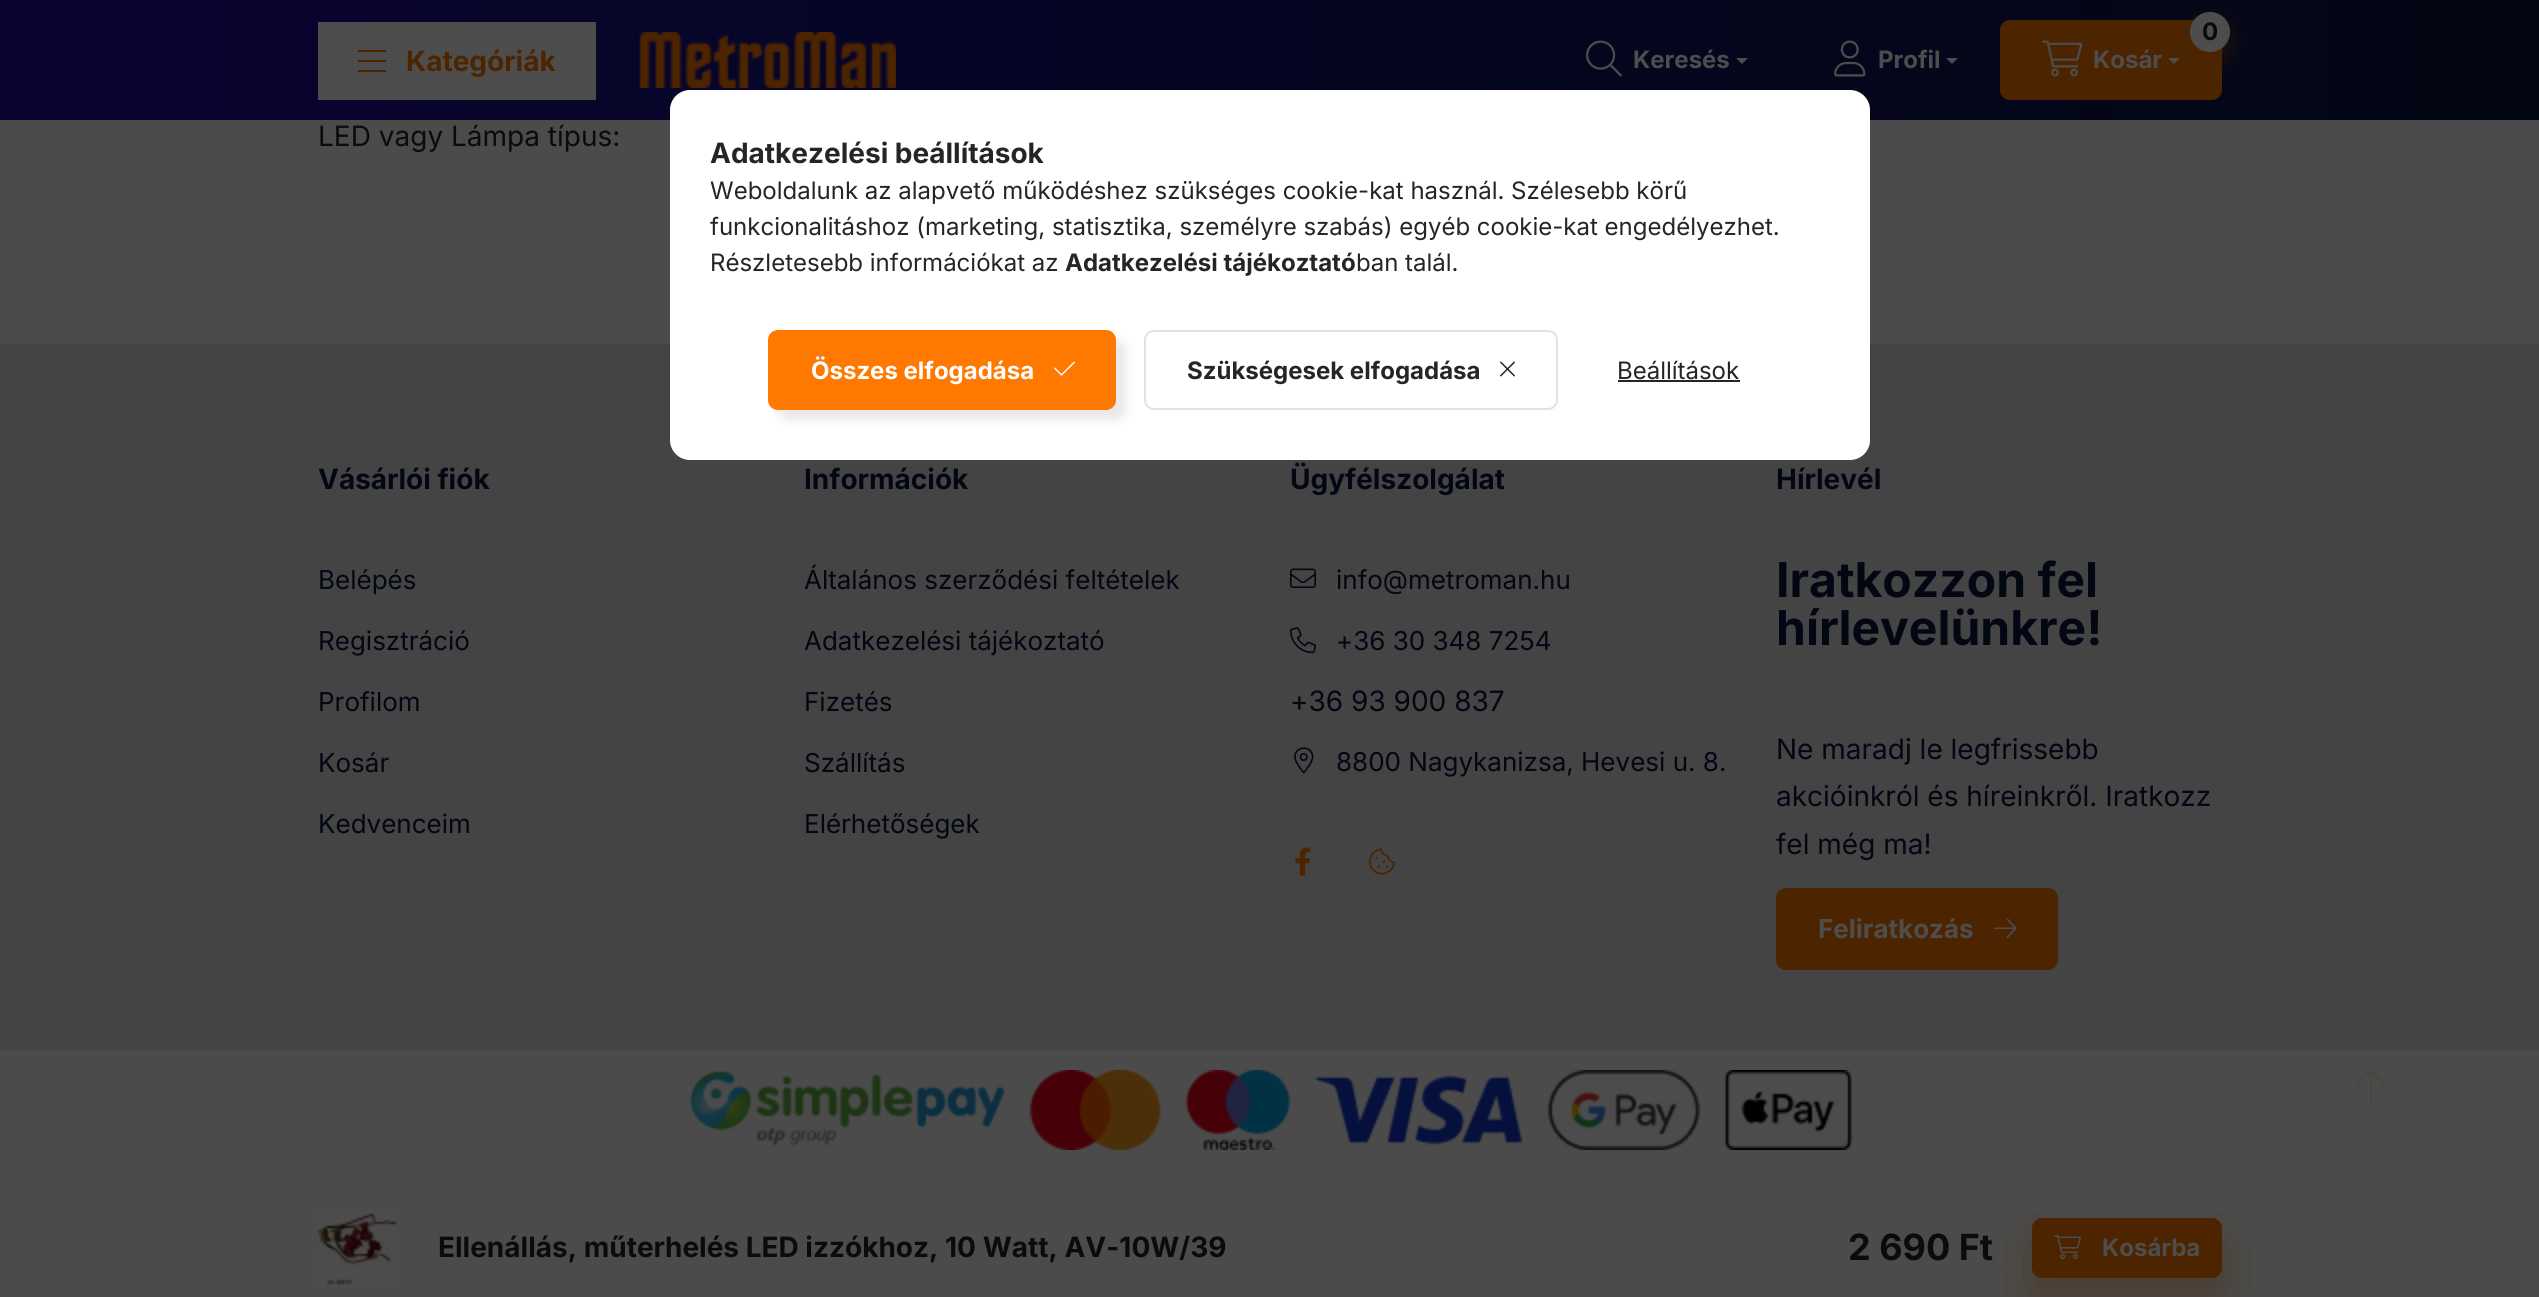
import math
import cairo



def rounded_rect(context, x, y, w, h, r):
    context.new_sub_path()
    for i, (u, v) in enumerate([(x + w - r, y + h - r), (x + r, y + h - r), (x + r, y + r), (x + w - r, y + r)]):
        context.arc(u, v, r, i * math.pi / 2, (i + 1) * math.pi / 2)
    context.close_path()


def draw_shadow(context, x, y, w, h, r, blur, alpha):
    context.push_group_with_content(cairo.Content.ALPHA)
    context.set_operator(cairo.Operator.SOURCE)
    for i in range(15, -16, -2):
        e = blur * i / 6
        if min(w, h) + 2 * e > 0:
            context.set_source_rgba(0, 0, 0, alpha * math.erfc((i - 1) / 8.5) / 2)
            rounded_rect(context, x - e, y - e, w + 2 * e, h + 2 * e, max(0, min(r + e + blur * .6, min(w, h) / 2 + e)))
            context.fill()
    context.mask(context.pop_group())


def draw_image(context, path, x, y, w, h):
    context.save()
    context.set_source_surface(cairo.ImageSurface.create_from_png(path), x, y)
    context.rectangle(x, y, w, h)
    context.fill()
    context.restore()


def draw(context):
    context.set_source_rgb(75 / 255, 75 / 255, 75 / 255)
    context.paint()
    gradient = cairo.LinearGradient(0, 60, 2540, 60)
    gradient.add_color_stop_rgba(0, 9 / 255, 4 / 255, 49 / 255, 1)
    gradient.add_color_stop_rgba(1, 3 / 255, 7 / 255, 19 / 255, 1)
    context.set_source(gradient)
    context.rectangle(0, 0, 2539, 120)
    context.fill()
    context.set_source_rgb(77 / 255, 77 / 255, 77 / 255)
    context.rectangle(318, 22, 278, 78)
    context.fill()
    context.set_source_rgb(77 / 255, 36 / 255, 0)
    context.rectangle(358, 50, 28, 2)
    context.fill()
    context.rectangle(358, 60, 28, 2)
    context.fill()
    context.rectangle(358, 70, 28, 2)
    context.fill()
    draw_image(context, "images/1.png", 639, 32, 257, 56)
    draw_image(context, "images/2.png", 1586, 40, 36, 37)
    context.set_source_rgb(77 / 255, 77 / 255, 77 / 255)
    context.new_path()
    context.move_to(1736, 58)
    context.line_to(1748, 58)
    context.line_to(1742, 64)
    context.close_path()
    context.fill()
    draw_image(context, "images/3.png", 1834, 40, 32, 37)
    context.new_path()
    context.move_to(1946, 58)
    context.line_to(1958, 58)
    context.line_to(1952, 64)
    context.close_path()
    context.fill()
    context.set_source_rgb(77 / 255, 36 / 255, 0)
    rounded_rect(context, 2000, 20, 222, 80, 10)
    context.fill()
    context.set_source_rgb(77 / 255, 36 / 255, 0)
    draw_shadow(context, 2190, 22, 40, 40, 20, 10, 0.4)
    context.set_source_rgb(77 / 255, 77 / 255, 77 / 255)
    context.arc(2210, 32, 20, 0, 2 * math.pi)
    context.fill()
    draw_image(context, "images/4.png", 2042, 40, 41, 37)
    context.new_path()
    context.move_to(2168, 58)
    context.line_to(2180, 58)
    context.line_to(2174, 64)
    context.close_path()
    context.fill()
    draw_image(context, "images/5.png", 318, 1208, 79, 80)
    context.set_source_rgb(77 / 255, 36 / 255, 0)
    draw_shadow(context, 2032, 1238, 190, 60, 10, 20, 0.4)
    context.set_source_rgb(77 / 255, 36 / 255, 0)
    rounded_rect(context, 2032, 1218, 190, 60, 10)
    context.fill()
    draw_image(context, "images/6.png", 2054, 1235, 27, 24)
    context.set_source_rgb(68 / 255, 68 / 255, 68 / 255)
    context.rectangle(0, 344, 2539, 706)
    context.fill()
    draw_image(context, "images/7.png", 1290, 568, 26, 20)
    draw_image(context, "images/8.png", 1290, 627, 26, 27)
    draw_image(context, "images/9.png", 1294, 747, 20, 27)
    draw_image(context, "images/10.png", 1295, 847, 16, 29)
    draw_image(context, "images/11.png", 1368, 848, 28, 27)
    context.set_source_rgb(77 / 255, 36 / 255, 0)
    rounded_rect(context, 1777, 889, 280, 80, 9)
    context.fill_preserve()
    context.stroke()
    draw_image(context, "images/12.png", 1994, 918, 23, 20)
    draw_image(context, "images/13.png", 689, 1070, 1163, 80)
    context.set_source_rgb(1, 1, 1)
    rounded_rect(context, 670, 90, 1200, 370, 20)
    context.fill()
    context.set_source_rgb(232 / 255, 232 / 255, 232 / 255)
    draw_shadow(context, 778, 340, 348, 80, 10, 5, 1)
    context.set_source_rgb(1, 121 / 255, 0)
    rounded_rect(context, 769, 331, 346, 78, 9)
    context.fill_preserve()
    context.stroke()
    draw_image(context, "images/14.png", 1054, 361, 21, 15)
    rounded_rect(context, 1145, 331, 412, 78, 9)
    context.set_source_rgb(220 / 255, 226 / 255, 239 / 255)
    context.stroke()
    draw_image(context, "images/15.png", 1500, 361, 15, 16)
    context.set_source_rgb(37 / 255, 37 / 255, 37 / 255)
    context.rectangle(1618, 380, 122, 2)
    context.fill()
    draw_image(context, "images/16.png", 2356, 1069, 30, 36)
    context.select_font_face("Inter", cairo.FontSlant.NORMAL, cairo.FontWeight.BOLD)
    context.set_font_size(28)
    context.set_source_rgb(77 / 255, 36 / 255, 0)
    context.move_to(406, 71)
    context.show_text("Kategóriák")
    context.set_font_size(24)
    context.set_source_rgb(77 / 255, 77 / 255, 77 / 255)
    context.move_to(1633, 68)
    context.show_text("Keresés")
    context.move_to(1878, 68)
    context.show_text("Profil")
    context.set_source_rgb(11 / 255, 11 / 255, 11 / 255)
    context.move_to(2202, 40)
    context.show_text("0")
    context.set_source_rgb(77 / 255, 77 / 255, 77 / 255)
    context.move_to(2093, 68)
    context.show_text("Kosár")
    context.select_font_face("Inter")
    context.set_font_size(28)
    context.set_source_rgb(11 / 255, 11 / 255, 11 / 255)
    context.move_to(318, 146)
    context.show_text("LED vagy Lámpa típus:")
    context.select_font_face("Inter", cairo.FontSlant.NORMAL, cairo.FontWeight.BOLD)
    context.move_to(438, 1257)
    context.show_text("Ellenállás, műterhelés LED izzókhoz, 10 Watt, AV-10W/39")
    context.set_font_size(36)
    context.move_to(1848, 1260)
    context.show_text("2 690 Ft")
    context.set_font_size(24)
    context.set_source_rgb(77 / 255, 77 / 255, 77 / 255)
    context.move_to(2102, 1256)
    context.show_text("Kosárba")
    context.set_font_size(28)
    context.set_source_rgb(3 / 255, 7 / 255, 19 / 255)
    context.move_to(318, 489)
    context.show_text("Vásárlói fiók")
    context.select_font_face("Inter")
    context.set_font_size(26)
    context.move_to(318, 589)
    context.show_text("Belépés")
    context.move_to(318, 650)
    context.show_text("Regisztráció")
    context.move_to(318, 711)
    context.show_text("Profilom")
    context.move_to(318, 772)
    context.show_text("Kosár")
    context.move_to(318, 833)
    context.show_text("Kedvenceim")
    context.select_font_face("Inter", cairo.FontSlant.NORMAL, cairo.FontWeight.BOLD)
    context.set_font_size(28)
    context.move_to(804, 489)
    context.show_text("Információk")
    context.select_font_face("Inter")
    context.set_font_size(26)
    context.move_to(804, 589)
    context.show_text("Általános szerződési feltételek")
    context.move_to(804, 650)
    context.show_text("Adatkezelési tájékoztató")
    context.move_to(804, 711)
    context.show_text("Fizetés")
    context.move_to(804, 772)
    context.show_text("Szállítás")
    context.move_to(804, 833)
    context.show_text("Elérhetőségek")
    context.select_font_face("Inter", cairo.FontSlant.NORMAL, cairo.FontWeight.BOLD)
    context.set_font_size(28)
    context.move_to(1290, 489)
    context.show_text("Ügyfélszolgálat")
    context.select_font_face("Inter")
    context.set_font_size(26)
    context.move_to(1336, 589)
    context.show_text("info@metroman.hu")
    context.move_to(1336, 650)
    context.show_text("+36 30 348 7254")
    context.set_font_size(28)
    context.move_to(1290, 711)
    context.show_text("+36 93 900 837")
    context.set_font_size(26)
    context.move_to(1336, 771)
    context.show_text("8800 Nagykanizsa, Hevesi u. 8.")
    context.select_font_face("Inter", cairo.FontSlant.NORMAL, cairo.FontWeight.BOLD)
    context.set_font_size(28)
    context.move_to(1776, 489)
    context.show_text("Hírlevél")
    context.set_font_size(48)
    context.move_to(1776, 597)
    context.show_text("Iratkozzon fel")
    context.move_to(1776, 645)
    context.show_text("hírlevelünkre!")
    context.select_font_face("Inter")
    context.set_font_size(28)
    context.move_to(1776, 759)
    context.show_text("Ne maradj le legfrissebb")
    context.move_to(1776, 806)
    context.show_text("akcióinkról és híreinkről. Iratkozz")
    context.move_to(1776, 854)
    context.show_text("fel még ma!")
    context.select_font_face("Inter", cairo.FontSlant.NORMAL, cairo.FontWeight.BOLD)
    context.set_font_size(26)
    context.set_source_rgb(77 / 255, 77 / 255, 77 / 255)
    context.move_to(1818, 938)
    context.show_text("Feliratkozás")
    context.set_font_size(28)
    context.set_source_rgb(37 / 255, 37 / 255, 37 / 255)
    context.move_to(710, 163)
    context.show_text("Adatkezelési beállítások")
    context.select_font_face("Inter")
    context.set_font_size(24)
    context.move_to(710, 199)
    context.show_text("Weboldalunk az alapvető működéshez szükséges cookie-kat használ. Szélesebb körű")
    context.move_to(710, 235)
    context.show_text("funkcionalitáshoz (marketing, statisztika, személyre szabás) egyéb cookie-kat engedélyezhet.")
    context.move_to(710, 271)
    context.show_text("Részletesebb információkat az")
    context.select_font_face("Inter", cairo.FontSlant.NORMAL, cairo.FontWeight.BOLD)
    context.move_to(1065, 271)
    context.show_text("Adatkezelési tájékoztató")
    context.select_font_face("Inter")
    context.move_to(1356, 271)
    context.show_text("ban talál.")
    context.select_font_face("Inter", cairo.FontSlant.NORMAL, cairo.FontWeight.BOLD)
    context.set_source_rgb(1, 1, 1)
    context.move_to(811, 379)
    context.show_text("Összes elfogadása")
    context.set_source_rgb(37 / 255, 37 / 255, 37 / 255)
    context.move_to(1187, 379)
    context.show_text("Szükségesek elfogadása")
    context.select_font_face("Inter")
    context.move_to(1617, 379)
    context.show_text("Beállítások")


surface = cairo.ImageSurface(cairo.Format.RGB24, 2539, 1297)
context = cairo.Context(surface)
options = cairo.FontOptions()
options.set_hint_metrics(cairo.HintMetrics.OFF)
options.set_hint_style(cairo.HintStyle.NONE)
context.set_font_options(options)
context.set_miter_limit(4)
draw(context)
surface.write_to_png("out.png")
